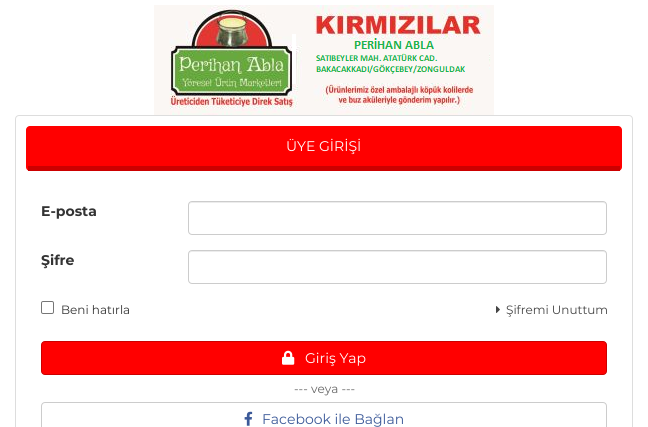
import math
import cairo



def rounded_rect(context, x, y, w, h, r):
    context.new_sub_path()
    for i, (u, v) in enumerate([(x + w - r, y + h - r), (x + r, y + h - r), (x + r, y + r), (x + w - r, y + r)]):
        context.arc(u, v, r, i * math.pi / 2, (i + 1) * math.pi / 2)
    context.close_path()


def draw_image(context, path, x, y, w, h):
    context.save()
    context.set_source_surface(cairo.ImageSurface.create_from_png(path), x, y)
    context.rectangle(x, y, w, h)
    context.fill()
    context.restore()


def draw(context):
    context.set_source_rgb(1, 1, 1)
    context.paint()
    draw_image(context, "images/1.png", 154, 5, 340, 110)
    rounded_rect(context, 15.5, 115.5, 617, 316, 3.5)
    context.set_source_rgb(221 / 255, 221 / 255, 221 / 255)
    context.set_line_width(1)
    context.stroke()
    context.set_source_rgb(1, 0, 0)
    rounded_rect(context, 26, 126, 596, 45, 4)
    context.fill()
    context.set_source_rgb(204 / 255, 0, 0)
    context.rectangle(28, 166, 592, 5)
    context.fill()
    context.set_source_rgb(236 / 255, 236 / 255, 236 / 255)
    context.new_path()
    context.move_to(192, 203)
    context.line_to(603, 203)
    context.curve_to(605, 203, 606, 204, 606, 206)
    context.curve_to(606, 204, 605, 202, 603, 202)
    context.line_to(192, 202)
    context.curve_to(190, 202, 189, 204, 189, 206)
    context.curve_to(189, 204, 190, 203, 192, 203)
    context.close_path()
    context.fill()
    rounded_rect(context, 188.5, 201.5, 418, 33, 3.5)
    context.set_source_rgb(204 / 255, 204 / 255, 204 / 255)
    context.stroke()
    context.set_source_rgb(236 / 255, 236 / 255, 236 / 255)
    context.new_path()
    context.move_to(192, 252)
    context.line_to(603, 252)
    context.curve_to(605, 252, 606, 253, 606, 255)
    context.curve_to(606, 253, 605, 251, 603, 251)
    context.line_to(192, 251)
    context.curve_to(190, 251, 189, 253, 189, 255)
    context.curve_to(189, 253, 190, 252, 192, 252)
    context.close_path()
    context.fill()
    rounded_rect(context, 188.5, 250.5, 418, 33, 3.5)
    context.set_source_rgb(204 / 255, 204 / 255, 204 / 255)
    context.stroke()
    rounded_rect(context, 41.5, 301.5, 12, 12, 1.5)
    context.set_source_rgb(118 / 255, 118 / 255, 118 / 255)
    context.stroke()
    draw_image(context, "images/2.png", 496, 306, 4, 7)
    context.set_source_rgb(1, 0, 0)
    rounded_rect(context, 41.5, 341.5, 565, 33, 3.5)
    context.fill_preserve()
    context.set_source_rgb(204 / 255, 0, 0)
    context.stroke()
    draw_image(context, "images/3.png", 282, 350, 13, 15)
    rounded_rect(context, 41.5, 402.5, 565, 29, 3.5)
    context.set_source_rgb(204 / 255, 204 / 255, 204 / 255)
    context.stroke()
    draw_image(context, "images/4.png", 244, 411, 9, 15)
    context.select_font_face("Montserrat")
    context.set_font_size(14)
    context.set_source_rgb(1, 1, 1)
    context.move_to(286, 151)
    context.show_text("ÜYE GİRİŞİ")
    context.select_font_face("Montserrat", cairo.FontSlant.NORMAL, cairo.FontWeight.BOLD)
    context.set_source_rgb(51 / 255, 51 / 255, 51 / 255)
    context.move_to(41, 216)
    context.show_text("E-posta")
    context.move_to(41, 265)
    context.show_text("Şifre")
    context.select_font_face("Montserrat")
    context.set_font_size(12)
    context.move_to(61, 314)
    context.show_text("Beni hatırla")
    context.set_source_rgb(68 / 255, 68 / 255, 68 / 255)
    context.move_to(506, 314)
    context.show_text("Şifremi Unuttum")
    context.set_font_size(14)
    context.set_source_rgb(1, 1, 1)
    context.move_to(305, 363)
    context.show_text("Giriş Yap")
    context.set_font_size(12)
    context.set_source_rgb(102 / 255, 102 / 255, 102 / 255)
    context.move_to(294, 393)
    context.show_text("--- veya ---")
    context.set_font_size(14)
    context.set_source_rgb(59 / 255, 89 / 255, 152 / 255)
    context.move_to(262, 424)
    context.show_text("Facebook ile Bağlan")


surface = cairo.ImageSurface(cairo.Format.RGB24, 648, 427)
context = cairo.Context(surface)
options = cairo.FontOptions()
options.set_hint_metrics(cairo.HintMetrics.OFF)
options.set_hint_style(cairo.HintStyle.NONE)
context.set_font_options(options)
context.set_miter_limit(4)
draw(context)
surface.write_to_png("out.png")
